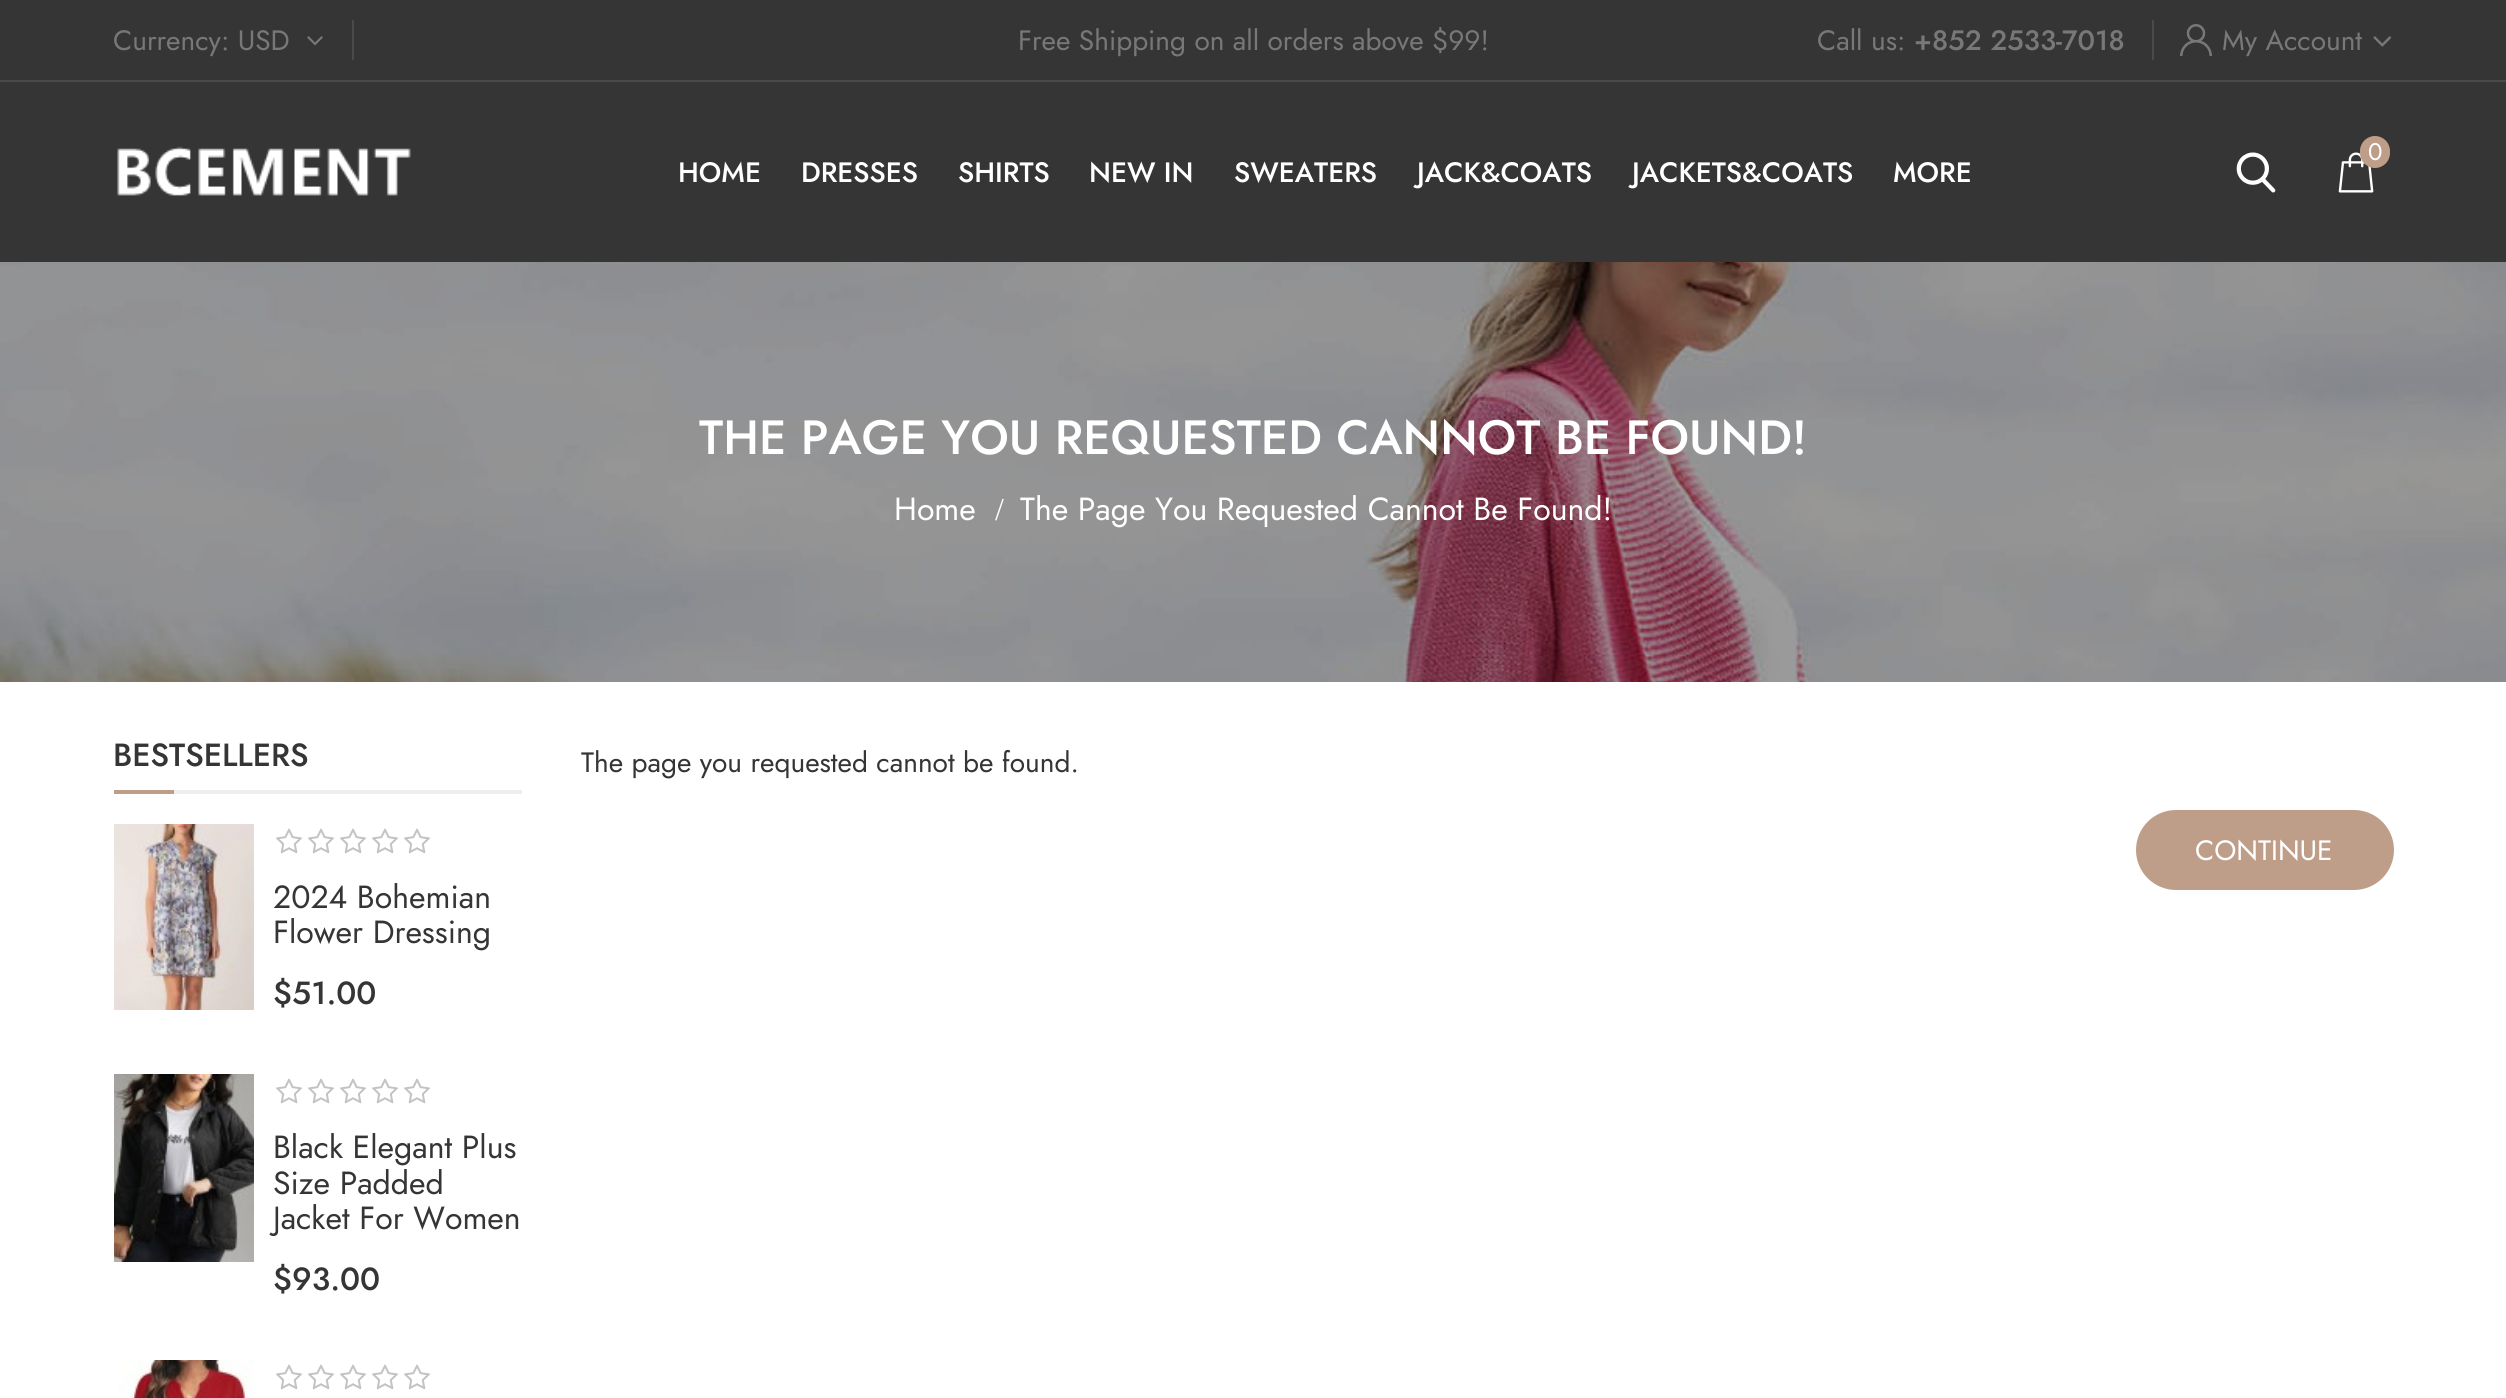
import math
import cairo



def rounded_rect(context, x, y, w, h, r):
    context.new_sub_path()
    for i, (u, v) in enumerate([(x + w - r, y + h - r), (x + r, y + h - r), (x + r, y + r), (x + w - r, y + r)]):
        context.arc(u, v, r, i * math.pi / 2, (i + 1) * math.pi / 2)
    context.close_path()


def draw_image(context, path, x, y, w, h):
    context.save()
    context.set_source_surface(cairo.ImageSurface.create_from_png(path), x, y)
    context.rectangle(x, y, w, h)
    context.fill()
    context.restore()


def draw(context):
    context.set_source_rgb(1, 1, 1)
    context.paint()
    context.set_source_rgb(53 / 255, 53 / 255, 53 / 255)
    context.rectangle(0, 0, 2506, 80)
    context.fill()
    context.set_source_rgb(74 / 255, 74 / 255, 74 / 255)
    context.rectangle(0, 80, 2506, 2)
    context.fill()
    draw_image(context, "images/1.png", 307, 36, 16, 10)
    context.rectangle(352, 20, 2, 40)
    context.fill()
    context.rectangle(2152, 20, 2, 40)
    context.fill()
    draw_image(context, "images/2.png", 2180, 24, 32, 32)
    draw_image(context, "images/3.png", 2373, 36, 19, 11)
    context.set_source_rgb(53 / 255, 53 / 255, 53 / 255)
    context.rectangle(0, 82, 2506, 180)
    context.fill()
    draw_image(context, "images/4.png", 117, 146, 294, 50)
    draw_image(context, "images/5.png", 2236, 152, 40, 41)
    draw_image(context, "images/6.png", 2338, 152, 36, 41)
    context.set_source_rgb(190 / 255, 158 / 255, 137 / 255)
    rounded_rect(context, 2360, 136, 30, 32, 15)
    context.fill()
    draw_image(context, "images/7.png", 0, 262, 2506, 420)
    context.set_source_rgb(238 / 255, 238 / 255, 238 / 255)
    context.rectangle(174, 790, 348, 4)
    context.fill()
    context.set_source_rgb(190 / 255, 158 / 255, 137 / 255)
    context.rectangle(114, 790, 60, 4)
    context.fill()
    draw_image(context, "images/8.png", 114, 824, 140, 186)
    draw_image(context, "images/9.png", 276, 828, 26, 26)
    draw_image(context, "images/9.png", 308, 828, 26, 26)
    draw_image(context, "images/9.png", 340, 828, 26, 26)
    draw_image(context, "images/9.png", 372, 828, 26, 26)
    draw_image(context, "images/9.png", 404, 828, 26, 26)
    draw_image(context, "images/10.png", 114, 1074, 140, 188)
    draw_image(context, "images/9.png", 276, 1078, 26, 26)
    draw_image(context, "images/9.png", 308, 1078, 26, 26)
    draw_image(context, "images/9.png", 340, 1078, 26, 26)
    draw_image(context, "images/9.png", 372, 1078, 26, 26)
    draw_image(context, "images/9.png", 404, 1078, 26, 26)
    draw_image(context, "images/11.png", 119, 1360, 135, 38)
    draw_image(context, "images/9.png", 276, 1364, 26, 26)
    draw_image(context, "images/9.png", 308, 1364, 26, 26)
    draw_image(context, "images/9.png", 340, 1364, 26, 26)
    draw_image(context, "images/9.png", 372, 1364, 26, 26)
    draw_image(context, "images/9.png", 404, 1364, 26, 26)
    rounded_rect(context, 2136, 810, 258, 80, 40)
    context.fill()
    context.select_font_face("Jost")
    context.set_font_size(28)
    context.set_source_rgb(120 / 255, 120 / 255, 120 / 255)
    context.move_to(113, 50)
    context.show_text("Currency: USD")
    context.move_to(1018, 50)
    context.show_text("Free Shipping on all orders above $99!")
    context.move_to(1817, 50)
    context.show_text("Call us:")
    context.select_font_face("Jost Medium")
    context.move_to(1914, 50)
    context.show_text("+852 2533-7018")
    context.select_font_face("Jost")
    context.move_to(2222, 50)
    context.show_text("My Account")
    context.select_font_face("Jost Medium")
    context.set_source_rgb(1, 1, 1)
    context.move_to(678, 182)
    context.show_text("HOME")
    context.move_to(801, 182)
    context.show_text("DRESSES")
    context.move_to(958, 182)
    context.show_text("SHIRTS")
    context.move_to(1089, 182)
    context.show_text("NEW IN")
    context.move_to(1234, 182)
    context.show_text("SWEATERS")
    context.move_to(1417, 182)
    context.show_text("JACK&COATS")
    context.move_to(1632, 182)
    context.show_text("JACKETS&COATS")
    context.move_to(1893, 182)
    context.show_text("MORE")
    context.select_font_face("Jost")
    context.set_font_size(24)
    context.move_to(2368, 160)
    context.show_text("0")
    context.select_font_face("Jost Medium")
    context.set_font_size(48)
    context.move_to(699, 454)
    context.show_text("THE PAGE YOU REQUESTED CANNOT BE FOUND!")
    context.select_font_face("Jost")
    context.set_font_size(32)
    context.move_to(894, 520)
    context.show_text("Home")
    context.select_font_face("Liberation Serif")
    context.move_to(995, 520)
    context.show_text("/")
    context.select_font_face("Jost")
    context.move_to(1020, 520)
    context.show_text("The Page You Requested Cannot Be Found!")
    context.select_font_face("Jost Medium")
    context.set_source_rgb(53 / 255, 53 / 255, 53 / 255)
    context.move_to(113, 766)
    context.show_text("BESTSELLERS")
    context.select_font_face("Jost")
    context.move_to(273, 908)
    context.show_text("2024 Bohemian")
    context.move_to(273, 943)
    context.show_text("Flower Dressing")
    context.select_font_face("Jost Medium")
    context.move_to(273, 1004)
    context.show_text("$51.00")
    context.select_font_face("Jost")
    context.move_to(273, 1158)
    context.show_text("Black Elegant Plus")
    context.move_to(273, 1194)
    context.show_text("Size Padded")
    context.move_to(273, 1229)
    context.show_text("Jacket For Women")
    context.select_font_face("Jost Medium")
    context.move_to(273, 1290)
    context.show_text("$93.00")
    context.select_font_face("Jost")
    context.set_font_size(28)
    context.move_to(581, 772)
    context.show_text("The page you requested cannot be found.")
    context.set_source_rgb(1, 1, 1)
    context.move_to(2195, 860)
    context.show_text("CONTINUE")


surface = cairo.ImageSurface(cairo.Format.RGB24, 2506, 1398)
context = cairo.Context(surface)
options = cairo.FontOptions()
options.set_hint_metrics(cairo.HintMetrics.OFF)
options.set_hint_style(cairo.HintStyle.NONE)
context.set_font_options(options)
context.set_miter_limit(4)
draw(context)
surface.write_to_png("out.png")
